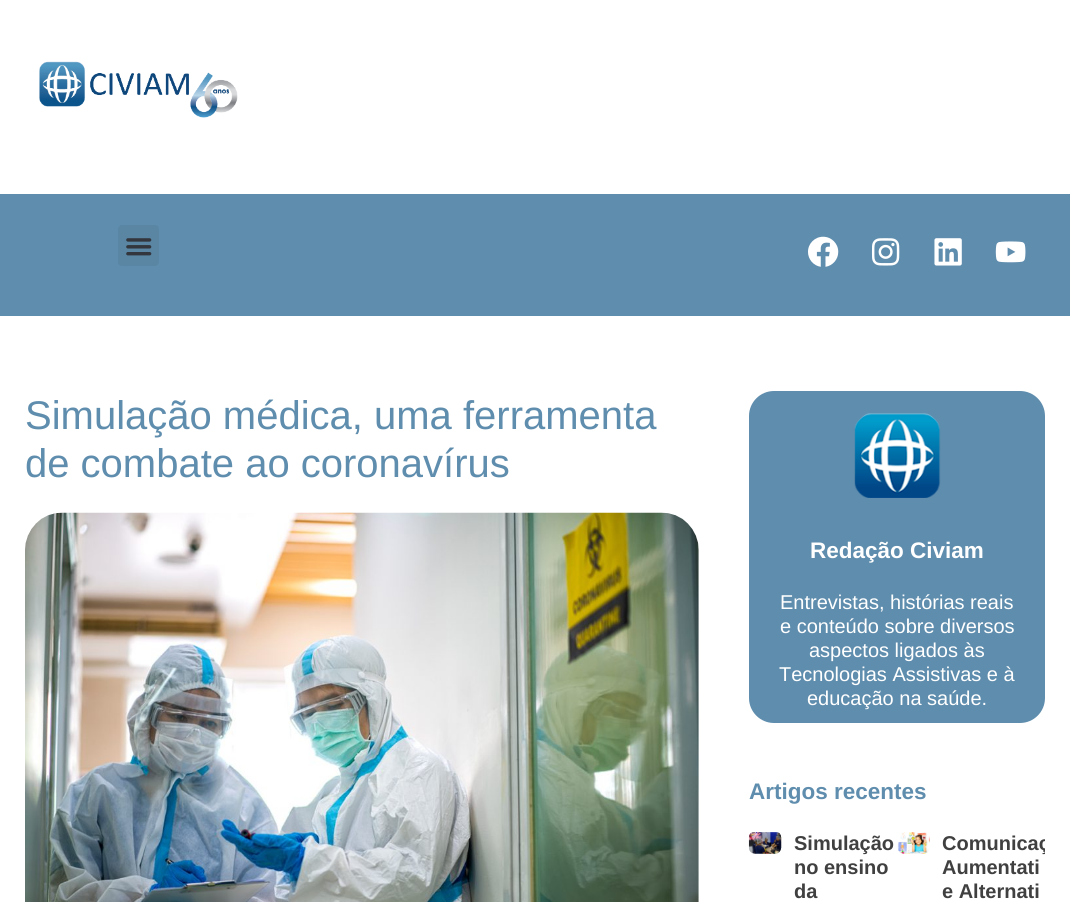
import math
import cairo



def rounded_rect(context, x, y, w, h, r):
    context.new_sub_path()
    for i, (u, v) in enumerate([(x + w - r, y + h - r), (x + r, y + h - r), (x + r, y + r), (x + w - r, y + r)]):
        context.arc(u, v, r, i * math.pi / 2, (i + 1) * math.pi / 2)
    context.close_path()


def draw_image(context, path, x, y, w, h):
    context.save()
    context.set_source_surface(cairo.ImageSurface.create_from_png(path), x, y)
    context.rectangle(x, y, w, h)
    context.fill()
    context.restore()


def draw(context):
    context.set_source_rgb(1, 1, 1)
    context.paint()
    draw_image(context, "images/1.png", 39, 61, 199, 57)
    context.set_source_rgb(95 / 255, 141 / 255, 173 / 255)
    context.rectangle(0, 194, 1070, 122)
    context.fill()
    context.set_source_rgb(90 / 255, 134 / 255, 164 / 255)
    rounded_rect(context, 118, 225, 41, 41, 4)
    context.fill()
    draw_image(context, "images/2.png", 126, 238, 26, 18)
    draw_image(context, "images/3.png", 808, 236, 31, 31)
    draw_image(context, "images/4.png", 871, 238, 29, 28)
    draw_image(context, "images/5.png", 934, 238, 28, 28)
    draw_image(context, "images/6.png", 995, 241, 31, 22)
    draw_image(context, "images/7.png", 25, 512, 674, 390)
    context.set_source_rgb(95 / 255, 141 / 255, 173 / 255)
    rounded_rect(context, 749, 391, 296, 332, 25)
    context.fill()
    draw_image(context, "images/8.png", 854, 413, 87, 85)
    draw_image(context, "images/9.png", 748, 832, 34, 22)
    draw_image(context, "images/10.png", 897, 832, 33, 22)
    context.select_font_face("Liberation Sans")
    context.set_font_size(40)
    context.move_to(25, 429)
    context.show_text("Simulação médica, uma ferramenta")
    context.move_to(25, 477)
    context.show_text("de combate ao coronavírus")
    context.select_font_face("Liberation Sans", cairo.FontSlant.NORMAL, cairo.FontWeight.BOLD)
    context.set_font_size(22.5)
    context.set_source_rgb(1, 1, 1)
    context.move_to(810, 558)
    context.show_text("Redação Civiam")
    context.select_font_face("Liberation Sans")
    context.set_font_size(20)
    context.move_to(780, 609)
    context.show_text("Entrevistas, histórias reais")
    context.move_to(780, 633)
    context.show_text("e conteúdo sobre diversos")
    context.move_to(809, 657)
    context.show_text("aspectos ligados às")
    context.move_to(779, 681)
    context.show_text("Tecnologias Assistivas e à")
    context.move_to(807, 705)
    context.show_text("educação na saúde.")
    context.select_font_face("Liberation Sans", cairo.FontSlant.NORMAL, cairo.FontWeight.BOLD)
    context.set_font_size(22.5)
    context.set_source_rgb(95 / 255, 141 / 255, 173 / 255)
    context.move_to(749, 799)
    context.show_text("Artigos recentes")
    context.set_font_size(20)
    context.set_source_rgb(64 / 255, 64 / 255, 64 / 255)
    context.move_to(794, 850)
    context.show_text("Simulação")
    context.move_to(794, 874)
    context.show_text("no ensino")
    context.move_to(794, 898)
    context.show_text("da")
    context.save()
    context.rectangle(898, 831, 147, 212)
    context.clip()
    context.move_to(942, 850)
    context.show_text("Comunicaç")
    context.restore()
    context.move_to(942, 874)
    context.show_text("Aumentati")
    context.move_to(942, 898)
    context.show_text("e Alternati")


surface = cairo.ImageSurface(cairo.Format.RGB24, 1070, 902)
context = cairo.Context(surface)
options = cairo.FontOptions()
options.set_hint_metrics(cairo.HintMetrics.OFF)
options.set_hint_style(cairo.HintStyle.NONE)
context.set_font_options(options)
context.set_miter_limit(4)
draw(context)
surface.write_to_png("out.png")
